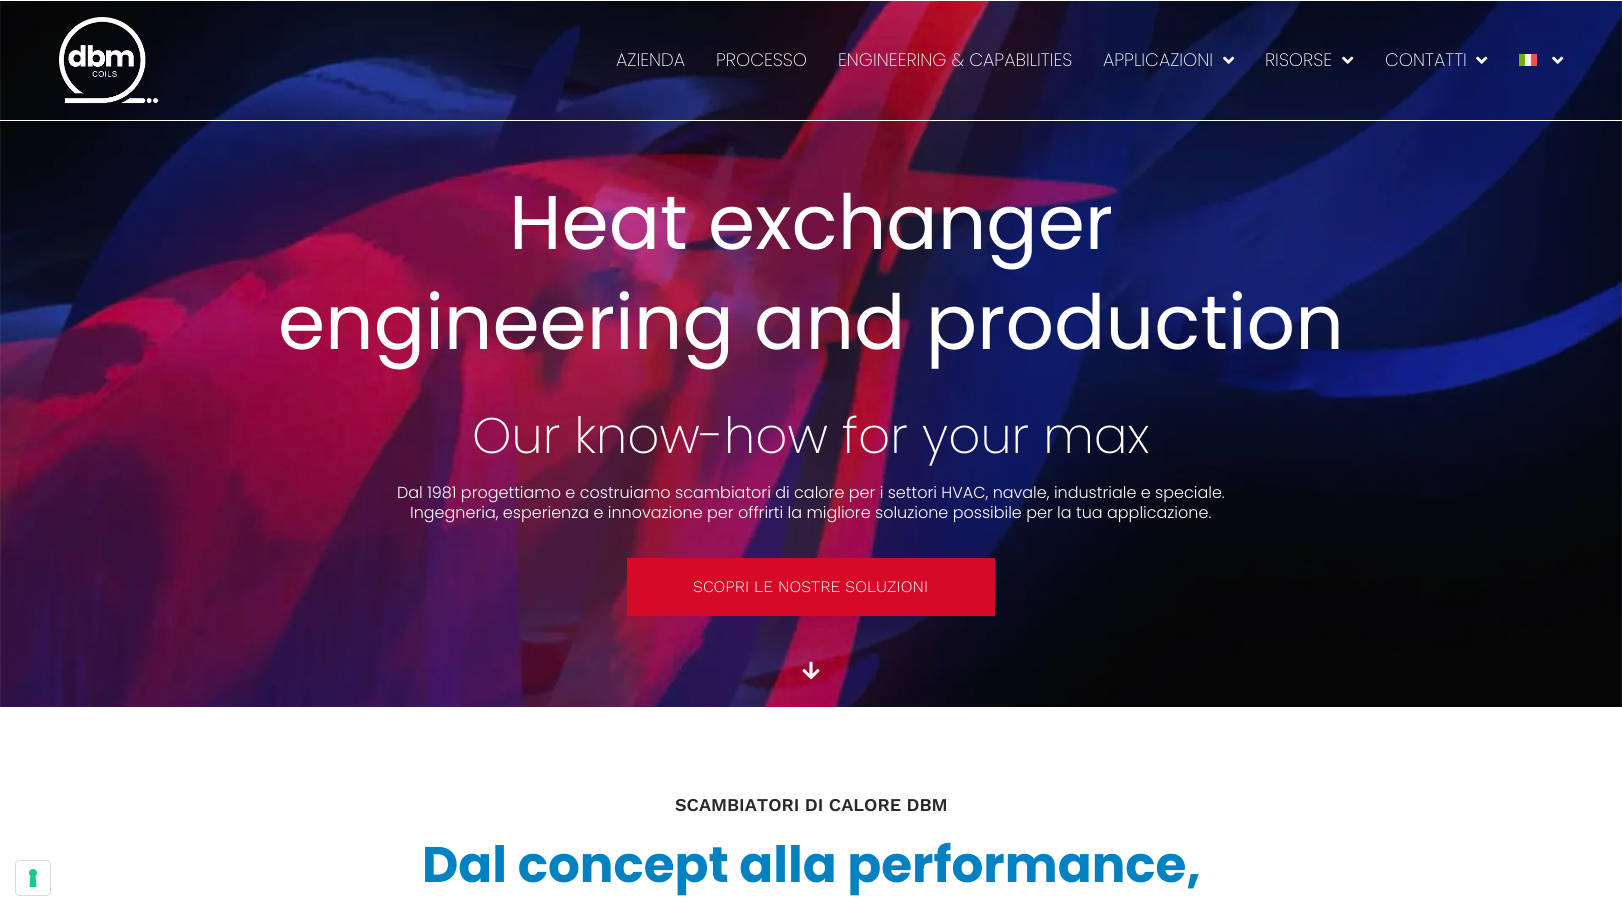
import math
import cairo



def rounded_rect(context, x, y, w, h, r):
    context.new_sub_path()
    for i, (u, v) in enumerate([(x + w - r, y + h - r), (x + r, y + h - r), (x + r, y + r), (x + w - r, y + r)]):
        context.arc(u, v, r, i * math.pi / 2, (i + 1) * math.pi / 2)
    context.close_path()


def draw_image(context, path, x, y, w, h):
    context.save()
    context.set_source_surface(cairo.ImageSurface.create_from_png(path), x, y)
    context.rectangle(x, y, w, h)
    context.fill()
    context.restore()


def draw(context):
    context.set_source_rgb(1, 1, 1)
    context.paint()
    draw_image(context, "images/7.png", 0, 1, 1622, 706)
    context.set_source_rgb(1, 1, 1)
    context.rectangle(0, 120, 1622, 1)
    context.fill()
    draw_image(context, "images/1.png", 59, 17, 99, 87)
    draw_image(context, "images/2.png", 1223, 56, 12, 8)
    draw_image(context, "images/3.png", 1342, 56, 12, 8)
    draw_image(context, "images/4.png", 1476, 56, 12, 8)
    context.set_source_rgb(240 / 255, 240 / 255, 240 / 255)
    context.rectangle(1525, 54, 6, 12)
    context.fill()
    context.set_source_rgb(1, 75 / 255, 85 / 255)
    context.rectangle(1531, 54, 6, 12)
    context.fill()
    context.set_source_rgb(115 / 255, 175 / 255, 0)
    context.rectangle(1519, 54, 6, 12)
    context.fill()
    draw_image(context, "images/5.png", 1552, 56, 12, 8)
    rounded_rect(context, 15.5, 860.5, 35, 35, 4.5)
    context.set_source_rgb(217 / 255, 217 / 255, 217 / 255)
    context.set_line_width(1)
    context.stroke()
    context.set_source_rgb(1, 1, 1)
    rounded_rect(context, 16, 861, 34, 34, 4)
    context.fill()
    draw_image(context, "images/6.png", 29, 869, 8, 18)
    context.set_source_rgb(215 / 255, 9 / 255, 41 / 255)
    context.rectangle(627, 558, 368, 58)
    context.fill()
    draw_image(context, "images/8.png", 802, 661, 18, 19)
    context.select_font_face("Poppins ExtraLight")
    context.set_font_size(18)
    context.set_source_rgb(1, 1, 1)
    context.move_to(616, 66)
    context.show_text("AZIENDA")
    context.move_to(716, 66)
    context.show_text("PROCESSO")
    context.move_to(838, 66)
    context.show_text("ENGINEERING & CAPABILITIES")
    context.move_to(1103, 66)
    context.show_text("APPLICAZIONI")
    context.move_to(1265, 66)
    context.show_text("RISORSE")
    context.move_to(1385, 66)
    context.show_text("CONTATTI")
    context.select_font_face("Poppins")
    context.set_font_size(76)
    context.move_to(509, 249)
    context.show_text("Heat exchanger")
    context.move_to(278, 349)
    context.show_text("engineering and production")
    context.select_font_face("Poppins ExtraLight")
    context.set_font_size(50)
    context.move_to(472, 453)
    context.show_text("Our know-how for your max")
    context.select_font_face("Poppins Light")
    context.set_font_size(16)
    context.move_to(397, 498)
    context.show_text("Dal 1981 progettiamo e costruiamo scambiatori di calore per i settori HVAC, navale, industriale e speciale.")
    context.move_to(410, 518)
    context.show_text("Ingegneria, esperienza e innovazione per offrirti la migliore soluzione possibile per la tua applicazione.")
    context.select_font_face("Work Sans Light")
    context.move_to(693, 592)
    context.show_text("SCOPRI LE NOSTRE SOLUZIONI")
    context.select_font_face("Work Sans SemiBold")
    context.set_font_size(18)
    context.set_source_rgb(41 / 255, 41 / 255, 41 / 255)
    context.move_to(675, 811)
    context.show_text("SCAMBIATORI DI CALORE DBM")
    context.select_font_face("Poppins", cairo.FontSlant.NORMAL, cairo.FontWeight.BOLD)
    context.set_font_size(50)
    context.set_source_rgb(0, 129 / 255, 193 / 255)
    context.move_to(422, 882)
    context.show_text("Dal concept alla performance,")


surface = cairo.ImageSurface(cairo.Format.RGB24, 1622, 911)
context = cairo.Context(surface)
options = cairo.FontOptions()
options.set_hint_metrics(cairo.HintMetrics.OFF)
options.set_hint_style(cairo.HintStyle.NONE)
context.set_font_options(options)
context.set_miter_limit(4)
draw(context)
surface.write_to_png("out.png")
